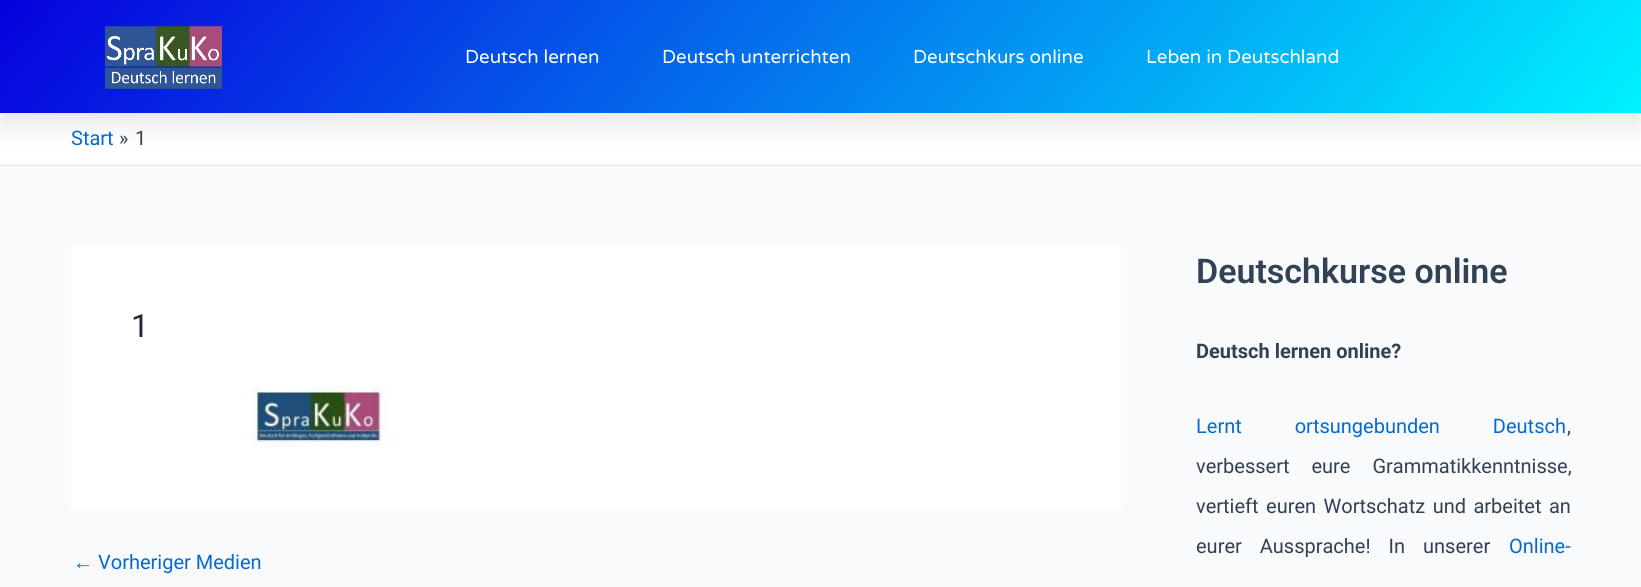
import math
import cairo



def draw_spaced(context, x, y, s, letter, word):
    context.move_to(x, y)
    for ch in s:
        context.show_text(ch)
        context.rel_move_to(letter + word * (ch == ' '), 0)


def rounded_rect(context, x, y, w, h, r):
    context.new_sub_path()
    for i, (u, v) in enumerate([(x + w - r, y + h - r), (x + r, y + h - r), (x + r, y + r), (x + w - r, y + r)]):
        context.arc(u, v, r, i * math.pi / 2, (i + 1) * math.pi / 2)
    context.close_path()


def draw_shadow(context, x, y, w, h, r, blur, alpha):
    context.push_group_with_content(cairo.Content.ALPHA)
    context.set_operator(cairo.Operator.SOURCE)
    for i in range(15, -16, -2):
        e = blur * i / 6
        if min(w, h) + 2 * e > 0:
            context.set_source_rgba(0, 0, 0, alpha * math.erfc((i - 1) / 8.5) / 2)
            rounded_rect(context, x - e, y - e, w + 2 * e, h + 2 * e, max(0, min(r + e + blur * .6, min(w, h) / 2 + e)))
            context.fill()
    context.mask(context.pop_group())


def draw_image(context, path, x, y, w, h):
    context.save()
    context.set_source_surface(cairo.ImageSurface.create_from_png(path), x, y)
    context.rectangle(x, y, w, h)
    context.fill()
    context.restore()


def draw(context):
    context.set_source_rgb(249 / 255, 250 / 255, 251 / 255)
    context.paint()
    context.set_source_rgb(1, 1, 1)
    context.rectangle(0, 113, 1641, 52)
    context.fill()
    context.set_source_rgb(0, 0, 0)
    draw_shadow(context, 0, 13, 1641, 112, 0, 12.5, 0.1)
    gradient = cairo.LinearGradient(311, -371, 1330, 484)
    gradient.add_color_stop_rgba(0, 7 / 255, 0, 221 / 255, 1)
    gradient.add_color_stop_rgba(1, 0, 242 / 255, 1, 1)
    context.set_source(gradient)
    context.rectangle(0, 0, 1641, 113)
    context.fill()
    draw_image(context, "images/1.png", 105, 26, 117, 63)
    context.set_source_rgb(226 / 255, 232 / 255, 240 / 255)
    context.rectangle(0, 165, 1641, 1)
    context.fill()
    context.set_source_rgb(1, 1, 1)
    context.rectangle(71, 246, 1050, 262)
    context.fill()
    draw_image(context, "images/2.png", 251, 386, 138, 61)
    context.select_font_face("Varela Round")
    context.set_font_size(18.75)
    context.move_to(465, 63)
    context.show_text("Deutsch lernen")
    context.move_to(662, 63)
    context.show_text("Deutsch unterrichten")
    context.move_to(913, 63)
    context.show_text("Deutschkurs online")
    context.move_to(1146, 63)
    context.show_text("Leben in Deutschland")
    context.select_font_face("Roboto")
    context.set_font_size(20)
    context.set_source_rgb(4 / 255, 107 / 255, 210 / 255)
    context.move_to(71, 145)
    context.show_text("Start")
    context.set_source_rgb(51 / 255, 65 / 255, 85 / 255)
    context.move_to(119, 145)
    context.show_text("»")
    context.move_to(135, 145)
    context.show_text("1")
    context.set_font_size(32)
    context.set_source_rgb(30 / 255, 41 / 255, 59 / 255)
    context.move_to(131, 337)
    context.show_text("1")
    context.select_font_face("Liberation Sans")
    context.set_font_size(20)
    context.set_source_rgb(4 / 255, 107 / 255, 210 / 255)
    context.move_to(73, 569)
    context.show_text("←")
    context.select_font_face("Roboto")
    context.move_to(98, 569)
    context.show_text("Vorheriger Medien")
    context.select_font_face("Roboto SemiBold")
    context.set_font_size(34)
    context.set_source_rgb(51 / 255, 65 / 255, 85 / 255)
    context.move_to(1196, 283)
    context.show_text("Deutschkurse online")
    context.select_font_face("Roboto", cairo.FontSlant.NORMAL, cairo.FontWeight.BOLD)
    context.set_font_size(20)
    context.move_to(1196, 358)
    context.show_text("Deutsch lernen online?")
    context.select_font_face("Roboto")
    context.set_source_rgb(4 / 255, 107 / 255, 210 / 255)
    draw_spaced(context, 1196, 433, "Lernt ortsungebunden Deutsch", 0, 48)
    context.set_source_rgb(51 / 255, 65 / 255, 85 / 255)
    context.move_to(1567, 433)
    context.show_text(",")
    draw_spaced(context, 1196, 473, "verbessert eure Grammatikkenntnisse,", 0, 17)
    draw_spaced(context, 1196, 513, "vertieft euren Wortschatz und arbeitet an", 0, 2.5)
    draw_spaced(context, 1196, 553, "eurer Aussprache! In unserer", 0, 13)
    context.set_source_rgb(4 / 255, 107 / 255, 210 / 255)
    context.move_to(1509, 553)
    context.show_text("Online-")


surface = cairo.ImageSurface(cairo.Format.RGB24, 1641, 587)
context = cairo.Context(surface)
options = cairo.FontOptions()
options.set_hint_metrics(cairo.HintMetrics.OFF)
options.set_hint_style(cairo.HintStyle.NONE)
context.set_font_options(options)
context.set_miter_limit(4)
draw(context)
surface.write_to_png("out.png")
